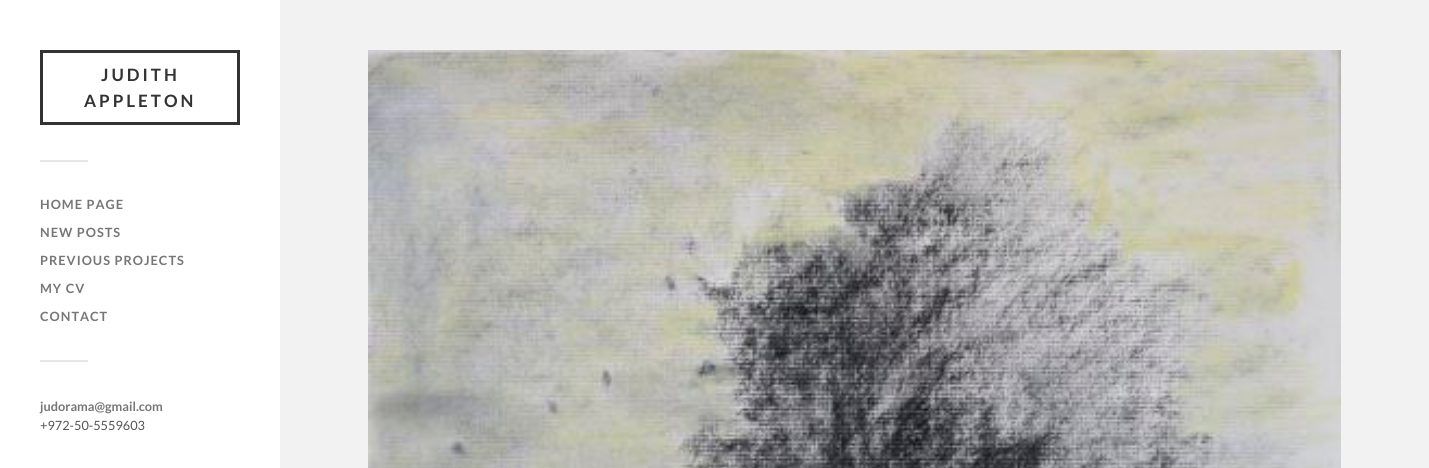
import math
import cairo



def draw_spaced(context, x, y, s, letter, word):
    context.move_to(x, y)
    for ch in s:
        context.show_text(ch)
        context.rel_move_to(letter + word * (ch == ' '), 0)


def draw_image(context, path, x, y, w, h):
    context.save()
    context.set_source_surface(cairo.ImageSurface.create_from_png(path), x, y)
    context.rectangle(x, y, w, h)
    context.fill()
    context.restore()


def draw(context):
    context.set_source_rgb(242 / 255, 242 / 255, 242 / 255)
    context.paint()
    context.set_source_rgb(1, 1, 1)
    context.rectangle(0, 0, 280, 468)
    context.fill()
    context.rectangle(41.5, 51.5, 197, 72)
    context.set_source_rgb(51 / 255, 51 / 255, 51 / 255)
    context.set_line_width(3)
    context.stroke()
    context.set_source_rgb(231 / 255, 231 / 255, 231 / 255)
    context.rectangle(40, 160, 48, 2)
    context.fill()
    context.rectangle(40, 360, 48, 2)
    context.fill()
    draw_image(context, "images/1.png", 368, 50, 973, 418)
    context.select_font_face("Lato", cairo.FontSlant.NORMAL, cairo.FontWeight.BOLD)
    context.set_font_size(17)
    context.set_source_rgb(51 / 255, 51 / 255, 51 / 255)
    draw_spaced(context, 101, 81, "JUDITH", 3, 0)
    draw_spaced(context, 84, 107, "APPLETON", 3, 0)
    context.set_font_size(12.75)
    context.set_source_rgb(118 / 255, 118 / 255, 118 / 255)
    draw_spaced(context, 40, 209, "HOME PAGE", 1, 0)
    draw_spaced(context, 40, 237, "NEW POSTS", 1, 0)
    draw_spaced(context, 40, 265, "PREVIOUS PROJECTS", 1, 0)
    draw_spaced(context, 40, 293, "MY CV", 1, 0)
    draw_spaced(context, 40, 321, "CONTACT", 1, 0)
    context.move_to(40, 411)
    context.show_text("judorama@gmail.com")
    context.select_font_face("Lato")
    context.set_source_rgb(85 / 255, 85 / 255, 85 / 255)
    context.move_to(40, 430)
    context.show_text("+972-50-5559603")


surface = cairo.ImageSurface(cairo.Format.RGB24, 1429, 468)
context = cairo.Context(surface)
options = cairo.FontOptions()
options.set_hint_metrics(cairo.HintMetrics.OFF)
options.set_hint_style(cairo.HintStyle.NONE)
context.set_font_options(options)
context.set_miter_limit(4)
draw(context)
surface.write_to_png("out.png")
